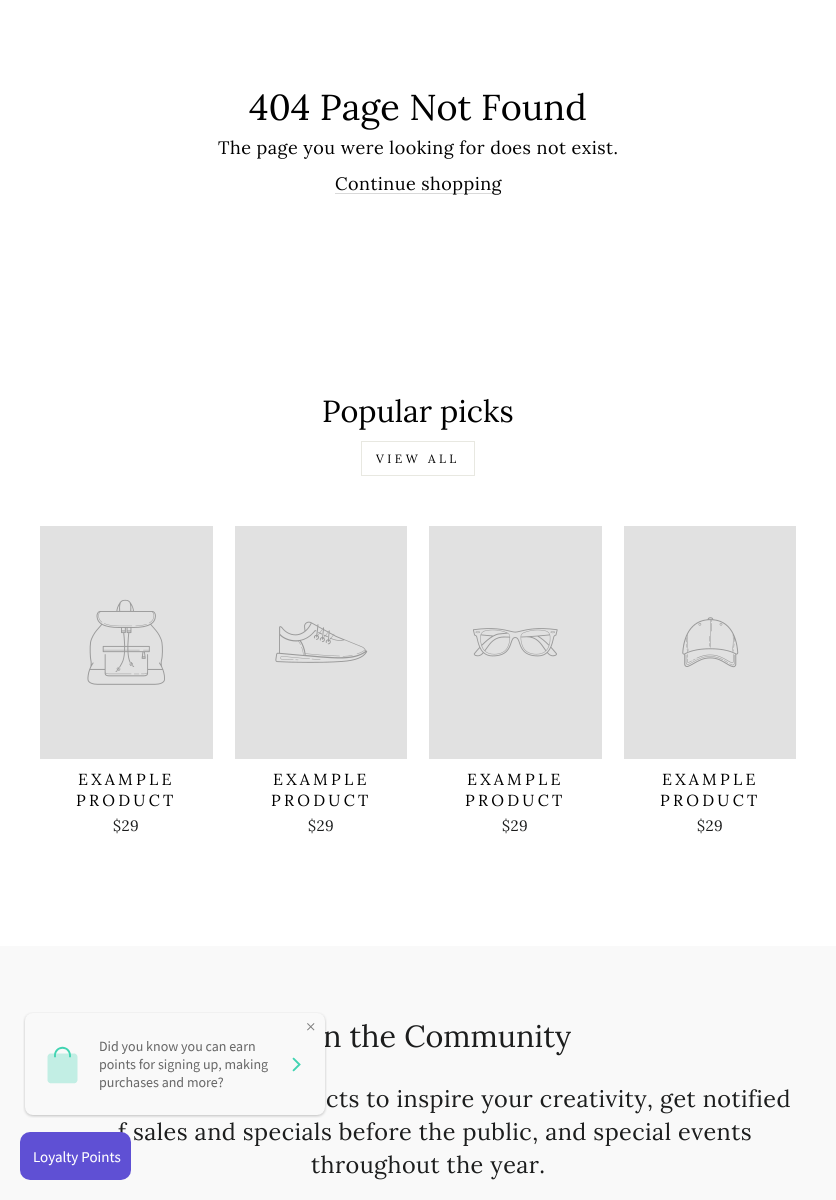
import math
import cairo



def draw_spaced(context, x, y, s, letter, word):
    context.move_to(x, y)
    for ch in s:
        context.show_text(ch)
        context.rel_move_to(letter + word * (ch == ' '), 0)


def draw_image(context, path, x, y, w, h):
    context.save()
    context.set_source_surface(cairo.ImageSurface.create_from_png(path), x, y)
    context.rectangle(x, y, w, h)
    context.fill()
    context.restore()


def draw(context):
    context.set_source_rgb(1, 1, 1)
    context.paint()
    context.set_source_rgb(217 / 255, 217 / 255, 217 / 255)
    context.rectangle(335, 193, 166, 1)
    context.fill()
    context.rectangle(361.5, 441.5, 113, 34)
    context.set_source_rgb(232 / 255, 232 / 255, 225 / 255)
    context.set_line_width(1)
    context.stroke()
    context.set_source_rgb(225 / 255, 225 / 255, 225 / 255)
    context.rectangle(40, 526, 173, 233)
    context.fill()
    draw_image(context, "images/1.png", 87, 599, 78, 86)
    context.rectangle(235, 526, 172, 233)
    context.fill()
    draw_image(context, "images/2.png", 275, 621, 93, 42)
    context.rectangle(429, 526, 173, 233)
    context.fill()
    draw_image(context, "images/3.png", 473, 628, 85, 29)
    context.rectangle(624, 526, 172, 233)
    context.fill()
    draw_image(context, "images/4.png", 682, 617, 57, 51)
    context.set_source_rgb(249 / 255, 249 / 255, 249 / 255)
    context.rectangle(0, 946, 836, 254)
    context.fill()
    context.select_font_face("Lora")
    context.set_font_size(36)
    context.set_source_rgb(0, 0, 0)
    context.move_to(249, 120)
    context.show_text("404 Page Not Found")
    context.set_font_size(18)
    draw_spaced(context, 218, 154, "The page you were looking for does not exist.", 0.45, 0)
    draw_spaced(context, 335, 190, "Continue shopping", 0.45, 0)
    context.set_font_size(30.5)
    context.move_to(322, 422)
    context.show_text("Popular picks")
    context.set_font_size(12)
    draw_spaced(context, 376, 463, "VIEW ALL", 3.5, 0)
    context.set_font_size(16)
    draw_spaced(context, 78, 785, "EXAMPLE", 3.25, 0)
    draw_spaced(context, 76, 806, "PRODUCT", 3.25, 0)
    context.set_font_size(15)
    context.set_source_rgb(28 / 255, 29 / 255, 29 / 255)
    draw_spaced(context, 113, 831, "$29", 0.45, 0)
    context.set_font_size(16)
    context.set_source_rgb(0, 0, 0)
    draw_spaced(context, 273, 785, "EXAMPLE", 3.25, 0)
    draw_spaced(context, 271, 806, "PRODUCT", 3.25, 0)
    context.set_font_size(15)
    context.set_source_rgb(28 / 255, 29 / 255, 29 / 255)
    draw_spaced(context, 308, 831, "$29", 0.45, 0)
    context.set_font_size(16)
    context.set_source_rgb(0, 0, 0)
    draw_spaced(context, 467, 785, "EXAMPLE", 3.25, 0)
    draw_spaced(context, 465, 806, "PRODUCT", 3.25, 0)
    context.set_font_size(15)
    context.set_source_rgb(28 / 255, 29 / 255, 29 / 255)
    draw_spaced(context, 502, 831, "$29", 0.45, 0)
    context.set_font_size(16)
    context.set_source_rgb(0, 0, 0)
    draw_spaced(context, 662, 785, "EXAMPLE", 3.25, 0)
    draw_spaced(context, 660, 806, "PRODUCT", 3.25, 0)
    context.set_font_size(15)
    context.set_source_rgb(28 / 255, 29 / 255, 29 / 255)
    draw_spaced(context, 697, 831, "$29", 0.45, 0)
    context.set_font_size(30.5)
    context.move_to(323, 1047)
    context.show_text("n the Community")
    context.set_font_size(23.4)
    draw_spaced(context, 326, 1107, "cts to inspire your creativity, get notified", 0.45, 0)
    draw_spaced(context, 118, 1140, "f sales and specials before the public, and special events", 0.45, 0)
    draw_spaced(context, 311, 1173, "throughout the year.", 0.45, 0)
    draw_image(context, "images/5.png", 23, 1012, 304, 106)
    draw_image(context, "images/6.png", 20, 1132, 111, 48)


surface = cairo.ImageSurface(cairo.Format.RGB24, 836, 1200)
context = cairo.Context(surface)
options = cairo.FontOptions()
options.set_hint_metrics(cairo.HintMetrics.OFF)
options.set_hint_style(cairo.HintStyle.NONE)
context.set_font_options(options)
context.set_miter_limit(4)
draw(context)
surface.write_to_png("out.png")
